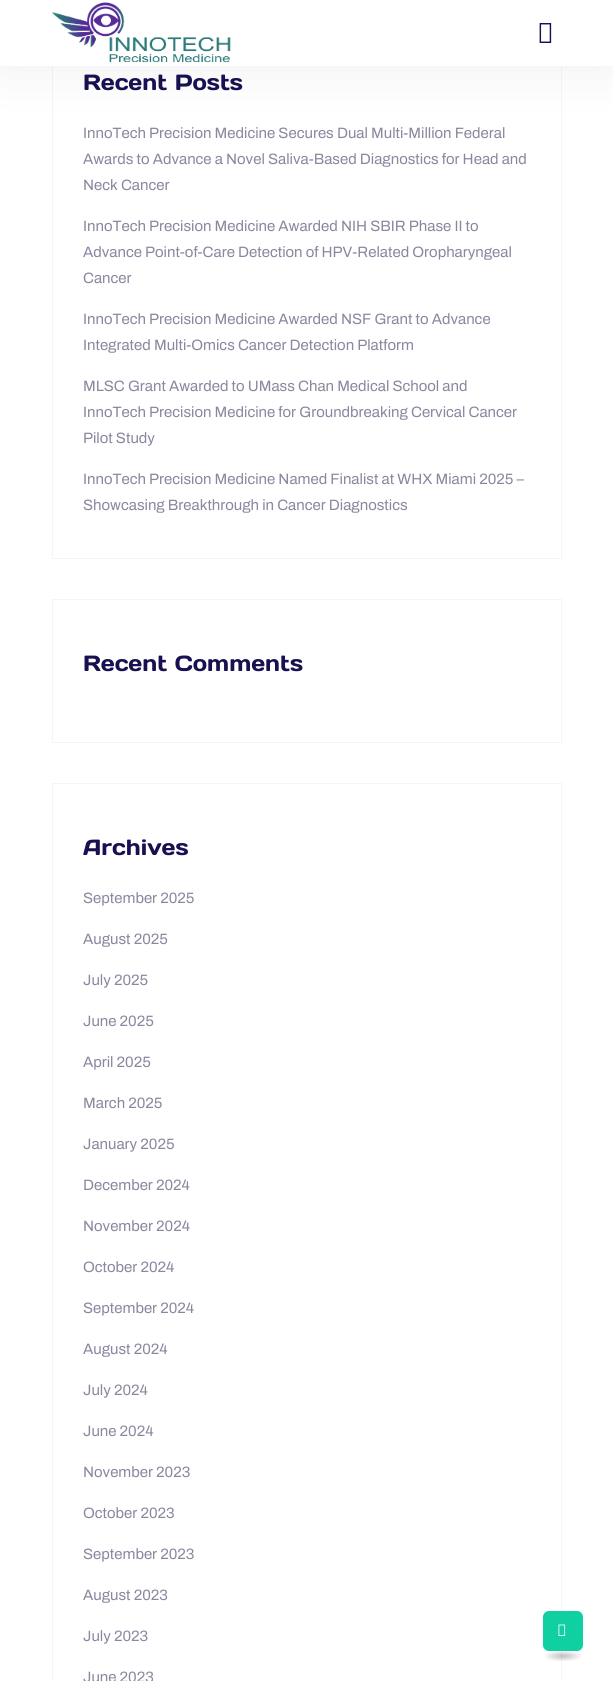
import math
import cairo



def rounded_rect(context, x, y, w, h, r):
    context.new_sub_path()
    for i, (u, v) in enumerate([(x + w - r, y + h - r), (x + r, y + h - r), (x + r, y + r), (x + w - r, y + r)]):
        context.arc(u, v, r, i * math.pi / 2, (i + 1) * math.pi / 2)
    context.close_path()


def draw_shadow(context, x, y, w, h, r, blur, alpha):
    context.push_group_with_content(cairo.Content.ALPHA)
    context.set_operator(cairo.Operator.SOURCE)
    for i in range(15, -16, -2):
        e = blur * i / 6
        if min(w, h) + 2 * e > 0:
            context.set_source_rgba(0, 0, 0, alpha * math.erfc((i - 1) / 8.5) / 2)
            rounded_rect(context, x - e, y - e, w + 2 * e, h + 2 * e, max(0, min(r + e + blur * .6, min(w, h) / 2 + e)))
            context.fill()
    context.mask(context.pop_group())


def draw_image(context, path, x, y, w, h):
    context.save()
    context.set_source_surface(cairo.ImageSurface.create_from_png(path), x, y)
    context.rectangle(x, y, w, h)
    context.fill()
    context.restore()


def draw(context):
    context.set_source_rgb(1, 1, 1)
    context.paint()
    context.rectangle(52.5, 18.5, 509, 540)
    context.set_source_rgb(242 / 255, 245 / 255, 250 / 255)
    context.set_line_width(1)
    context.stroke()
    context.set_source_rgb(0, 0, 0)
    draw_shadow(context, 0, 0, 613, 66, 0, 30, 0.07)
    context.set_source_rgb(1, 1, 1)
    context.rectangle(0, 0, 613, 66)
    context.fill()
    draw_image(context, "images/1.png", 52, 2, 179, 61)
    draw_image(context, "images/2.png", 539, 23, 13, 20)
    context.rectangle(52.5, 599.5, 509, 143)
    context.set_source_rgb(242 / 255, 245 / 255, 250 / 255)
    context.stroke()
    context.rectangle(52.5, 783.5, 509, 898)
    context.stroke()
    context.set_source_rgb(16 / 255, 208 / 255, 161 / 255)
    rounded_rect(context, 543, 1611, 40, 40, 6)
    context.fill()
    draw_image(context, "images/3.png", 558, 1624, 8, 12)
    gradient = cairo.RadialGradient(0, 0, 0, 0, 0, 1)
    gradient.set_matrix(cairo.Matrix(1 / 25, 0, 0, 1 / 7.1, -1 * 563 / 25, -1 * 1656 / 7.1))
    gradient.add_color_stop_rgba(0, 0, 0, 0, 0.25)
    gradient.add_color_stop_rgba(0.8, 0, 0, 0, 0)
    context.set_source(gradient)
    context.rectangle(545, 1651, 36, 10)
    context.fill()
    context.select_font_face("Days One")
    context.set_font_size(22)
    context.set_source_rgb(23 / 255, 17 / 255, 81 / 255)
    context.move_to(83, 90)
    context.show_text("Recent Posts")
    context.select_font_face("Archivo")
    context.set_font_size(15)
    context.set_source_rgb(138 / 255, 135 / 255, 159 / 255)
    context.move_to(83, 138)
    context.show_text("InnoTech Precision Medicine Secures Dual Multi-Million Federal")
    context.move_to(83, 164)
    context.show_text("Awards to Advance a Novel Saliva-Based Diagnostics for Head and")
    context.move_to(83, 190)
    context.show_text("Neck Cancer")
    context.move_to(83, 231)
    context.show_text("InnoTech Precision Medicine Awarded NIH SBIR Phase II to")
    context.move_to(83, 257)
    context.show_text("Advance Point-of-Care Detection of HPV-Related Oropharyngeal")
    context.move_to(83, 283)
    context.show_text("Cancer")
    context.move_to(83, 324)
    context.show_text("InnoTech Precision Medicine Awarded NSF Grant to Advance")
    context.move_to(83, 350)
    context.show_text("Integrated Multi-Omics Cancer Detection Platform")
    context.move_to(83, 391)
    context.show_text("MLSC Grant Awarded to UMass Chan Medical School and")
    context.move_to(83, 417)
    context.show_text("InnoTech Precision Medicine for Groundbreaking Cervical Cancer")
    context.move_to(83, 443)
    context.show_text("Pilot Study")
    context.move_to(83, 484)
    context.show_text("InnoTech Precision Medicine Named Finalist at WHX Miami 2025 –")
    context.move_to(83, 510)
    context.show_text("Showcasing Breakthrough in Cancer Diagnostics")
    context.select_font_face("Days One")
    context.set_font_size(22)
    context.set_source_rgb(23 / 255, 17 / 255, 81 / 255)
    context.move_to(83, 671)
    context.show_text("Recent Comments")
    context.move_to(83, 855)
    context.show_text("Archives")
    context.select_font_face("Archivo")
    context.set_font_size(15)
    context.set_source_rgb(138 / 255, 135 / 255, 159 / 255)
    context.move_to(83, 903)
    context.show_text("September 2025")
    context.move_to(83, 944)
    context.show_text("August 2025")
    context.move_to(83, 985)
    context.show_text("July 2025")
    context.move_to(83, 1026)
    context.show_text("June 2025")
    context.move_to(83, 1067)
    context.show_text("April 2025")
    context.move_to(83, 1108)
    context.show_text("March 2025")
    context.move_to(83, 1149)
    context.show_text("January 2025")
    context.move_to(83, 1190)
    context.show_text("December 2024")
    context.move_to(83, 1231)
    context.show_text("November 2024")
    context.move_to(83, 1272)
    context.show_text("October 2024")
    context.move_to(83, 1313)
    context.show_text("September 2024")
    context.move_to(83, 1354)
    context.show_text("August 2024")
    context.move_to(83, 1395)
    context.show_text("July 2024")
    context.move_to(83, 1436)
    context.show_text("June 2024")
    context.move_to(83, 1477)
    context.show_text("November 2023")
    context.move_to(83, 1518)
    context.show_text("October 2023")
    context.move_to(83, 1559)
    context.show_text("September 2023")
    context.move_to(83, 1600)
    context.show_text("August 2023")
    context.move_to(83, 1641)
    context.show_text("July 2023")
    context.move_to(83, 1682)
    context.show_text("June 2023")


surface = cairo.ImageSurface(cairo.Format.RGB24, 613, 1681)
context = cairo.Context(surface)
options = cairo.FontOptions()
options.set_hint_metrics(cairo.HintMetrics.OFF)
options.set_hint_style(cairo.HintStyle.NONE)
context.set_font_options(options)
context.set_miter_limit(4)
draw(context)
surface.write_to_png("out.png")
